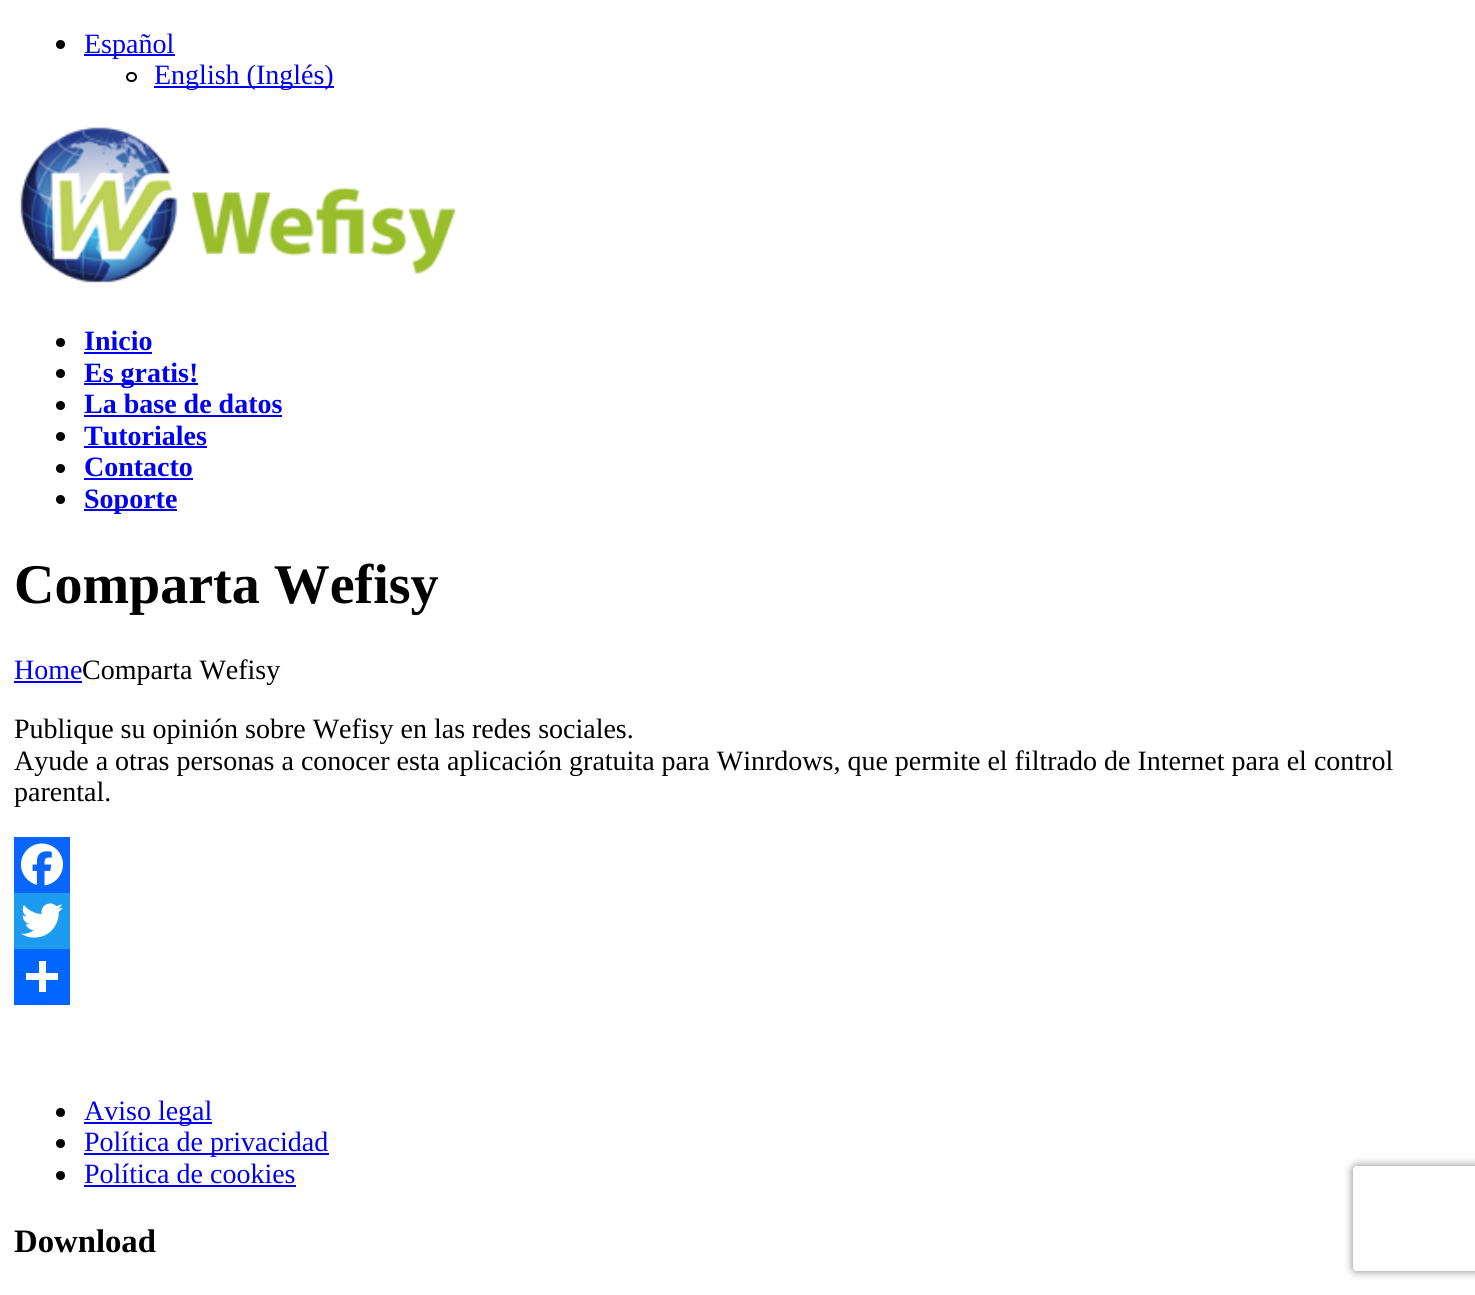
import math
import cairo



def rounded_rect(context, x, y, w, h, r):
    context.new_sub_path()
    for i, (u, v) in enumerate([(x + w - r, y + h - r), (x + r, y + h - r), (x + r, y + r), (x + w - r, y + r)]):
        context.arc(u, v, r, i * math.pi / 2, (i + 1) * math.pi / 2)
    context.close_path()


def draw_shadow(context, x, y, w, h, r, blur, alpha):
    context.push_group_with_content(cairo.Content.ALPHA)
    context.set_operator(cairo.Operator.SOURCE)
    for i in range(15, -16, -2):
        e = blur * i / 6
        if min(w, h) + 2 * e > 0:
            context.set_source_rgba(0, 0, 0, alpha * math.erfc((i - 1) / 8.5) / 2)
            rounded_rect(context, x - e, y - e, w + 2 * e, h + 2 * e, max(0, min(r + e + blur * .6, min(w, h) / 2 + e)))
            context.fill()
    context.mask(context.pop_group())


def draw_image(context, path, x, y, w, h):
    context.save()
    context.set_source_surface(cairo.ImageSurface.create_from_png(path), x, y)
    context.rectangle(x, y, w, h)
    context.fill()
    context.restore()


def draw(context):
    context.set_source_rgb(1, 1, 1)
    context.paint()
    context.set_source_rgb(0, 0, 0)
    context.arc(60.5, 44.5, 4.5, 0, 2 * math.pi)
    context.fill()
    context.set_source_rgb(0, 0, 238 / 255)
    context.rectangle(84, 54, 91, 2)
    context.fill()
    rounded_rect(context, 127, 73, 9, 8, 4)
    context.set_source_rgb(0, 0, 0)
    context.stroke()
    context.set_source_rgb(0, 0, 238 / 255)
    context.rectangle(154, 86, 180, 2)
    context.fill()
    draw_image(context, "images/1.png", 20, 127, 436, 156)
    context.set_source_rgb(0, 0, 0)
    context.arc(60.5, 342.5, 4.5, 0, 2 * math.pi)
    context.fill()
    context.set_source_rgb(0, 0, 238 / 255)
    context.rectangle(84, 352, 68, 2)
    context.fill()
    context.set_source_rgb(0, 0, 0)
    context.arc(60.5, 373.5, 4.5, 0, 2 * math.pi)
    context.fill()
    context.set_source_rgb(0, 0, 238 / 255)
    context.rectangle(84, 383, 114, 2)
    context.fill()
    context.set_source_rgb(0, 0, 0)
    context.arc(60.5, 405.5, 4.5, 0, 2 * math.pi)
    context.fill()
    context.set_source_rgb(0, 0, 238 / 255)
    context.rectangle(84, 415, 198, 2)
    context.fill()
    context.set_source_rgb(0, 0, 0)
    context.arc(60.5, 436.5, 4.5, 0, 2 * math.pi)
    context.fill()
    context.set_source_rgb(0, 0, 238 / 255)
    context.rectangle(84, 446, 123, 2)
    context.fill()
    context.set_source_rgb(0, 0, 0)
    context.arc(60.5, 468.5, 4.5, 0, 2 * math.pi)
    context.fill()
    context.set_source_rgb(0, 0, 238 / 255)
    context.rectangle(84, 478, 109, 2)
    context.fill()
    context.set_source_rgb(0, 0, 0)
    context.arc(60.5, 499.5, 4.5, 0, 2 * math.pi)
    context.fill()
    context.set_source_rgb(0, 0, 238 / 255)
    context.rectangle(84, 509, 93, 2)
    context.fill()
    context.rectangle(14, 681, 68, 2)
    context.fill()
    context.set_source_rgb(8 / 255, 102 / 255, 1)
    context.rectangle(14, 837, 56, 56)
    context.fill()
    draw_image(context, "images/2.png", 21, 843, 42, 43)
    context.set_source_rgb(29 / 255, 155 / 255, 240 / 255)
    context.rectangle(14, 893, 56, 56)
    context.fill()
    draw_image(context, "images/3.png", 21, 903, 42, 35)
    context.set_source_rgb(1 / 255, 102 / 255, 1)
    context.rectangle(14, 949, 56, 56)
    context.fill()
    context.set_source_rgb(1, 1, 1)
    context.rectangle(39, 961, 7, 31)
    context.fill()
    context.rectangle(26, 973, 32, 7)
    context.fill()
    context.set_source_rgb(0, 0, 0)
    context.arc(60.5, 1112.5, 4.5, 0, 2 * math.pi)
    context.fill()
    context.set_source_rgb(0, 0, 238 / 255)
    context.rectangle(84, 1122, 128, 2)
    context.fill()
    context.set_source_rgb(0, 0, 0)
    context.arc(60.5, 1143.5, 4.5, 0, 2 * math.pi)
    context.fill()
    context.set_source_rgb(0, 0, 238 / 255)
    context.rectangle(84, 1153, 245, 2)
    context.fill()
    context.set_source_rgb(0, 0, 0)
    context.arc(60.5, 1175.5, 4.5, 0, 2 * math.pi)
    context.fill()
    context.set_source_rgb(0, 0, 238 / 255)
    context.rectangle(84, 1185, 212, 2)
    context.fill()
    context.save()
    context.set_fill_rule(cairo.FillRule.EVEN_ODD)
    context.new_path()
    context.move_to(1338, 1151)
    context.line_to(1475, 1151)
    context.line_to(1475, 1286)
    context.line_to(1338, 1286)
    context.close_path()
    context.move_to(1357, 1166)
    context.line_to(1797, 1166)
    context.curve_to(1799, 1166, 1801, 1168, 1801, 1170)
    context.line_to(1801, 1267)
    context.curve_to(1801, 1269, 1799, 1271, 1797, 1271)
    context.line_to(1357, 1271)
    context.curve_to(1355, 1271, 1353, 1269, 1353, 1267)
    context.line_to(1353, 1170)
    context.curve_to(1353, 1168, 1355, 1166, 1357, 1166)
    context.close_path()
    context.clip()
    context.set_source_rgb(128 / 255, 128 / 255, 128 / 255)
    draw_shadow(context, 1353, 1166, 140, 105, 4, 4.5, 1)
    context.restore()
    context.select_font_face("Liberation Serif")
    context.set_font_size(28)
    context.move_to(84, 53)
    context.show_text("Español")
    context.move_to(154, 84)
    context.show_text("English (Inglés)")
    context.select_font_face("Liberation Serif", cairo.FontSlant.NORMAL, cairo.FontWeight.BOLD)
    context.move_to(84, 350)
    context.show_text("Inicio")
    context.move_to(84, 382)
    context.show_text("Es gratis!")
    context.move_to(84, 413)
    context.show_text("La base de datos")
    context.move_to(84, 445)
    context.show_text("Tutoriales")
    context.move_to(84, 476)
    context.show_text("Contacto")
    context.move_to(84, 508)
    context.show_text("Soporte")
    context.set_font_size(56)
    context.set_source_rgb(0, 0, 0)
    context.move_to(14, 603)
    context.show_text("Comparta Wefisy")
    context.select_font_face("Liberation Serif")
    context.set_font_size(28)
    context.set_source_rgb(0, 0, 238 / 255)
    context.move_to(14, 679)
    context.show_text("Home")
    context.set_source_rgb(0, 0, 0)
    context.move_to(82, 679)
    context.show_text("Comparta Wefisy")
    context.move_to(14, 738)
    context.show_text("Publique su opinión sobre Wefisy en las redes sociales.")
    context.move_to(14, 770)
    context.show_text("Ayude a otras personas a conocer esta aplicación gratuita para Winrdows, que permite el filtrado de Internet para el control")
    context.move_to(14, 801)
    context.show_text("parental.")
    context.set_source_rgb(0, 0, 238 / 255)
    context.move_to(84, 1120)
    context.show_text("Aviso legal")
    context.move_to(84, 1151)
    context.show_text("Política de privacidad")
    context.move_to(84, 1183)
    context.show_text("Política de cookies")
    context.select_font_face("Liberation Serif", cairo.FontSlant.NORMAL, cairo.FontWeight.BOLD)
    context.set_font_size(32.75)
    context.set_source_rgb(0, 0, 0)
    context.move_to(14, 1252)
    context.show_text("Download")


surface = cairo.ImageSurface(cairo.Format.RGB24, 1475, 1295)
context = cairo.Context(surface)
options = cairo.FontOptions()
options.set_hint_metrics(cairo.HintMetrics.OFF)
options.set_hint_style(cairo.HintStyle.NONE)
context.set_font_options(options)
context.set_miter_limit(4)
draw(context)
surface.write_to_png("out.png")
